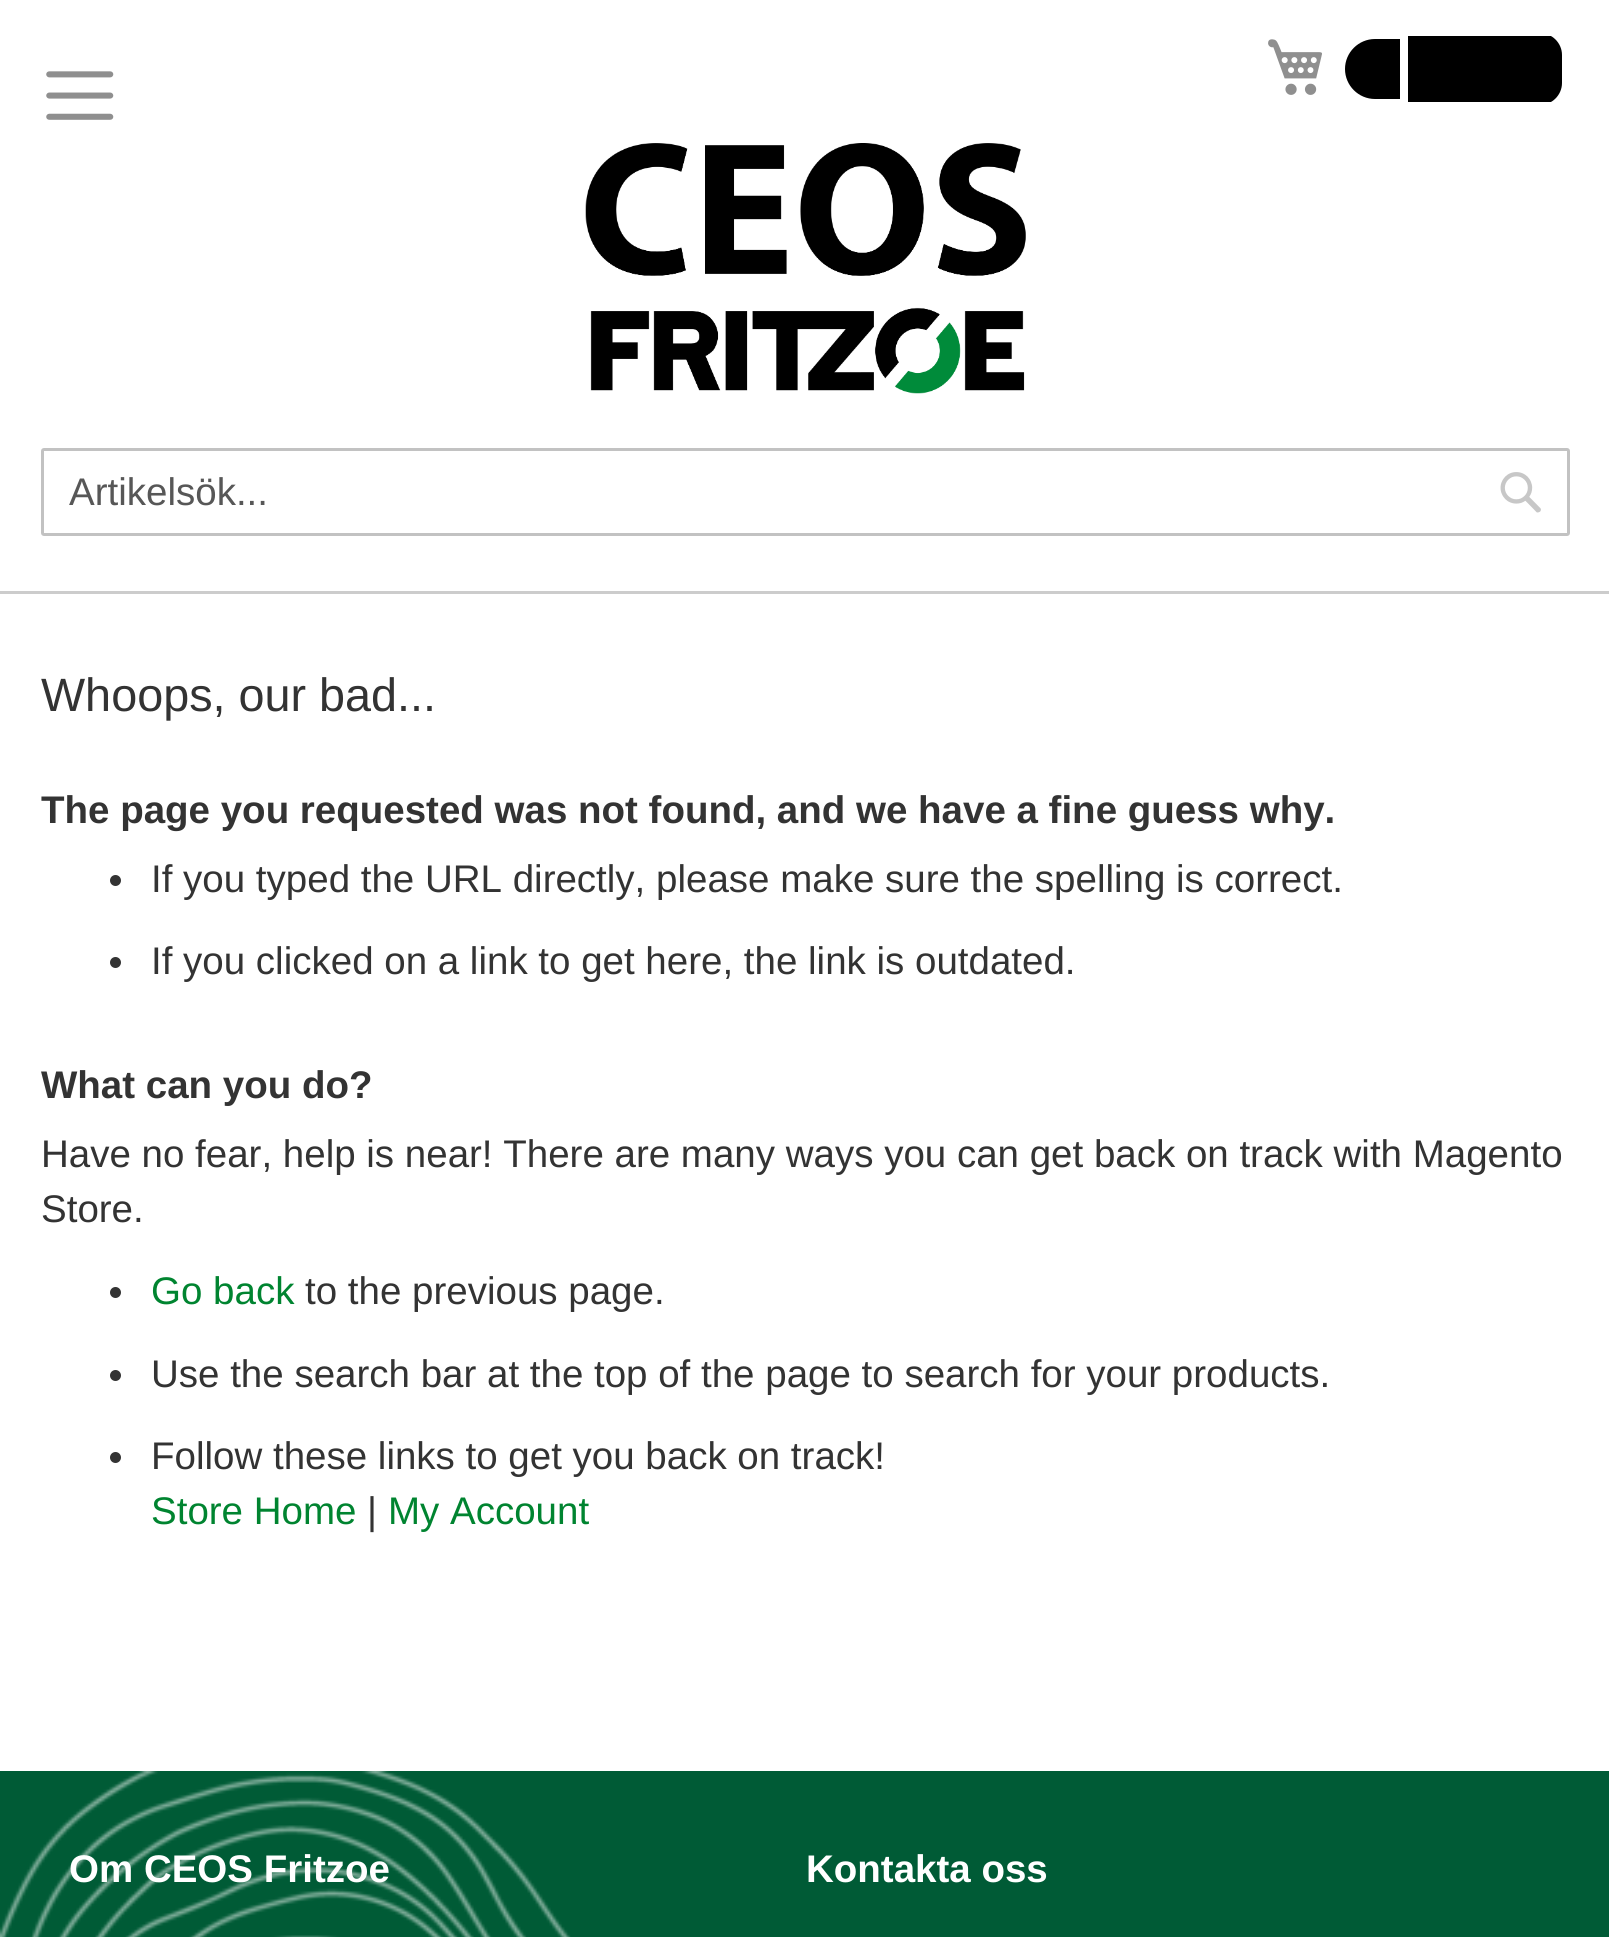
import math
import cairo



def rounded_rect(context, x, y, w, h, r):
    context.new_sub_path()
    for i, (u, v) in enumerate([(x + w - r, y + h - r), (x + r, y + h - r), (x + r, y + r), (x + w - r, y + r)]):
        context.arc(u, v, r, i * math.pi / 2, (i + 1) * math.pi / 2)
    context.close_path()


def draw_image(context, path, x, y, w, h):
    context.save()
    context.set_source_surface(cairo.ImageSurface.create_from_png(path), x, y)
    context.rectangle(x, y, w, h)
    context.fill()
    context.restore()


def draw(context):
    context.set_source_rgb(1, 1, 1)
    context.paint()
    context.set_source_rgb(204 / 255, 204 / 255, 204 / 255)
    context.rectangle(0, 591, 1609, 3)
    context.fill()
    draw_image(context, "images/1.png", 46, 71, 68, 49)
    draw_image(context, "images/2.png", 1268, 39, 54, 56)
    context.set_source_rgb(0, 0, 0)
    context.new_path()
    context.move_to(1375, 39)
    context.line_to(1408, 39)
    context.line_to(1408, 99)
    context.line_to(1375, 99)
    context.curve_to(1358.5, 99, 1345, 85.5, 1345, 69)
    context.curve_to(1345, 52.5, 1358.5, 39, 1375, 39)
    context.close_path()
    context.fill()
    context.save()
    rounded_rect(context, 1337, 36, 233, 66, 6)
    context.clip()
    context.new_path()
    context.move_to(1408, 33)
    context.line_to(1540, 33)
    context.curve_to(1552, 33, 1562, 43, 1562, 55)
    context.line_to(1562, 83)
    context.curve_to(1562, 95, 1552, 105, 1540, 105)
    context.line_to(1408, 105)
    context.close_path()
    context.fill()
    context.restore()
    context.set_source_rgb(1, 1, 1)
    context.rectangle(1400, 39, 8, 60)
    context.fill()
    draw_image(context, "images/3.png", 585, 143, 441, 251)
    rounded_rect(context, 42.5, 449.5, 1526, 85, 1.5)
    context.set_source_rgb(194 / 255, 194 / 255, 194 / 255)
    context.set_line_width(3)
    context.stroke()
    draw_image(context, "images/4.png", 1500, 472, 41, 41)
    context.set_source_rgb(51 / 255, 51 / 255, 51 / 255)
    context.arc(115.5, 880.5, 5.5, 0, 2 * math.pi)
    context.fill()
    context.arc(115.5, 962.5, 5.5, 0, 2 * math.pi)
    context.fill()
    context.arc(115.5, 1292.5, 5.5, 0, 2 * math.pi)
    context.fill()
    context.arc(115.5, 1375.5, 5.5, 0, 2 * math.pi)
    context.fill()
    context.arc(115.5, 1457.5, 5.5, 0, 2 * math.pi)
    context.fill()
    context.set_source_rgb(0, 91 / 255, 54 / 255)
    context.rectangle(0, 1771, 1609, 166)
    context.fill()
    draw_image(context, "images/5.png", 0, 1771, 571, 166)
    context.select_font_face("Liberation Sans")
    context.set_font_size(38.5)
    context.set_source_rgb(87 / 255, 87 / 255, 87 / 255)
    context.move_to(69, 505)
    context.show_text("Artikelsök...")
    context.set_font_size(46.75)
    context.set_source_rgb(51 / 255, 51 / 255, 51 / 255)
    context.move_to(41, 711)
    context.show_text("Whoops, our bad...")
    context.select_font_face("Liberation Sans", cairo.FontSlant.NORMAL, cairo.FontWeight.BOLD)
    context.set_font_size(38.5)
    context.move_to(41, 823)
    context.show_text("The page you requested was not found, and we have a fine guess why.")
    context.select_font_face("Liberation Sans")
    context.move_to(151, 892)
    context.show_text("If you typed the URL directly, please make sure the spelling is correct.")
    context.move_to(151, 974)
    context.show_text("If you clicked on a link to get here, the link is outdated.")
    context.select_font_face("Liberation Sans", cairo.FontSlant.NORMAL, cairo.FontWeight.BOLD)
    context.move_to(41, 1098)
    context.show_text("What can you do?")
    context.select_font_face("Liberation Sans")
    context.move_to(41, 1167)
    context.show_text("Have no fear, help is near! There are many ways you can get back on track with Magento")
    context.move_to(41, 1222)
    context.show_text("Store.")
    context.set_source_rgb(0, 132 / 255, 48 / 255)
    context.move_to(151, 1304)
    context.show_text("Go back")
    context.set_source_rgb(51 / 255, 51 / 255, 51 / 255)
    context.move_to(305, 1304)
    context.show_text("to the previous page.")
    context.move_to(151, 1387)
    context.show_text("Use the search bar at the top of the page to search for your products.")
    context.move_to(151, 1469)
    context.show_text("Follow these links to get you back on track!")
    context.set_source_rgb(0, 132 / 255, 48 / 255)
    context.move_to(151, 1524)
    context.show_text("Store Home")
    context.set_source_rgb(51 / 255, 51 / 255, 51 / 255)
    context.move_to(367, 1524)
    context.show_text("|")
    context.set_source_rgb(0, 132 / 255, 48 / 255)
    context.move_to(388, 1524)
    context.show_text("My Account")
    context.select_font_face("Liberation Sans", cairo.FontSlant.NORMAL, cairo.FontWeight.BOLD)
    context.set_source_rgb(1, 1, 1)
    context.move_to(69, 1882)
    context.show_text("Om CEOS Fritzoe")
    context.move_to(806, 1882)
    context.show_text("Kontakta oss")


surface = cairo.ImageSurface(cairo.Format.RGB24, 1609, 1937)
context = cairo.Context(surface)
options = cairo.FontOptions()
options.set_hint_metrics(cairo.HintMetrics.OFF)
options.set_hint_style(cairo.HintStyle.NONE)
context.set_font_options(options)
context.set_miter_limit(4)
draw(context)
surface.write_to_png("out.png")
